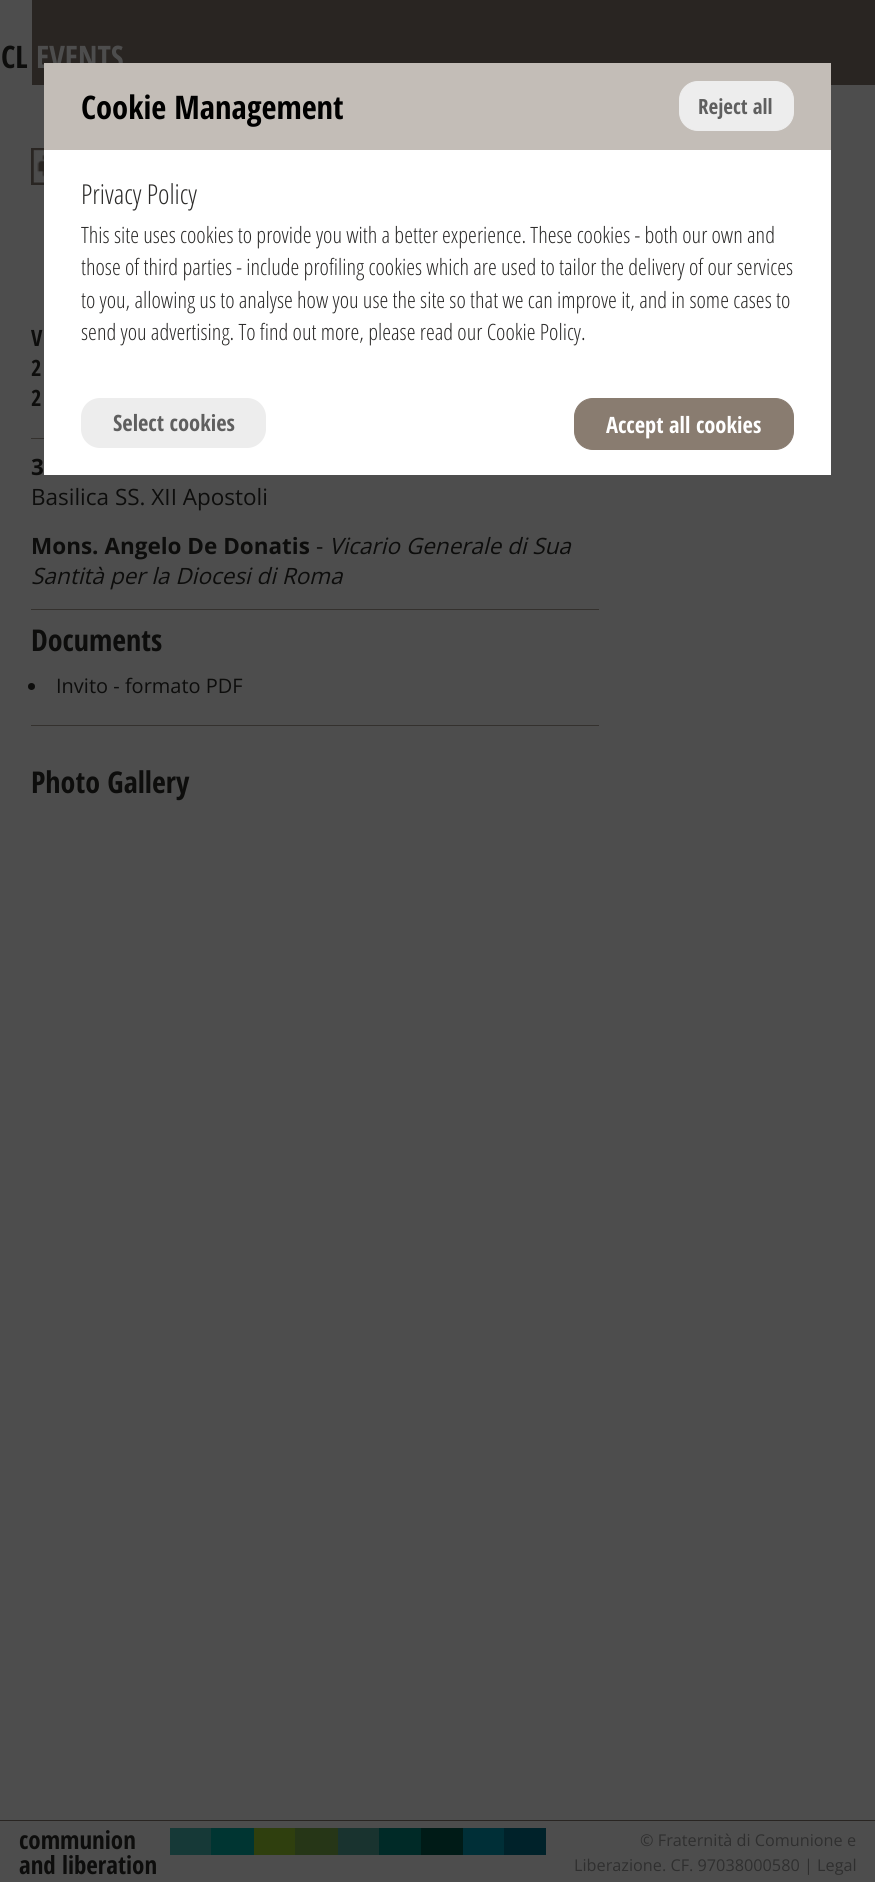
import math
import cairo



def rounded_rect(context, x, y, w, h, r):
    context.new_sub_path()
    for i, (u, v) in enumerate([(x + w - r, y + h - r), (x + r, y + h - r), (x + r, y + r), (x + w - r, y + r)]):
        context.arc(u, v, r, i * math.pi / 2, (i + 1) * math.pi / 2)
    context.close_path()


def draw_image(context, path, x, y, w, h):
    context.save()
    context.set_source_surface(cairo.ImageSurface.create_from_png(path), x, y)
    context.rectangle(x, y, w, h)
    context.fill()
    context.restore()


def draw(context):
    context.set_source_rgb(77 / 255, 77 / 255, 77 / 255)
    context.paint()
    context.set_source_rgb(41 / 255, 37 / 255, 34 / 255)
    context.rectangle(32, 0, 843, 85)
    context.fill()
    context.set_source_rgb(1, 1, 1)
    context.rectangle(44, 150, 787, 325)
    context.fill()
    context.set_source_rgb(237 / 255, 237 / 255, 237 / 255)
    rounded_rect(context, 81, 398, 185, 50, 19)
    context.fill()
    context.set_source_rgb(137 / 255, 124 / 255, 112 / 255)
    rounded_rect(context, 574.5, 398.5, 219, 51, 18.5)
    context.fill_preserve()
    context.set_line_width(1)
    context.stroke()
    context.set_source_rgb(41 / 255, 37 / 255, 34 / 255)
    context.rectangle(31, 148, 13, 37)
    context.fill()
    draw_image(context, "images/1.png", 33, 149, 11, 34)
    context.set_source_rgb(52 / 255, 49 / 255, 46 / 255)
    context.rectangle(31, 438, 13, 1)
    context.fill()
    context.rectangle(31, 609, 568, 1)
    context.fill()
    context.rectangle(31, 725, 568, 1)
    context.fill()
    context.set_source_rgb(13 / 255, 13 / 255, 12 / 255)
    context.arc(31.5, 686.5, 3.5, 0, 2 * math.pi)
    context.fill()
    context.set_source_rgb(41 / 255, 37 / 255, 34 / 255)
    context.rectangle(0, 1820, 875, 1)
    context.fill()
    context.set_source_rgb(22 / 255, 57 / 255, 55 / 255)
    context.rectangle(170, 1828, 41, 27)
    context.fill()
    context.set_source_rgb(0, 53 / 255, 50 / 255)
    context.rectangle(211, 1828, 43, 27)
    context.fill()
    context.set_source_rgb(47 / 255, 63 / 255, 14 / 255)
    context.rectangle(254, 1828, 41, 27)
    context.fill()
    context.set_source_rgb(38 / 255, 54 / 255, 23 / 255)
    context.rectangle(295, 1828, 43, 27)
    context.fill()
    context.set_source_rgb(25 / 255, 51 / 255, 47 / 255)
    context.rectangle(338, 1828, 41, 27)
    context.fill()
    context.set_source_rgb(0, 42 / 255, 39 / 255)
    context.rectangle(379, 1828, 42, 27)
    context.fill()
    context.set_source_rgb(0, 27 / 255, 23 / 255)
    context.rectangle(421, 1828, 42, 27)
    context.fill()
    context.set_source_rgb(0, 47 / 255, 55 / 255)
    context.rectangle(463, 1828, 41, 27)
    context.fill()
    context.set_source_rgb(0, 34 / 255, 42 / 255)
    context.rectangle(504, 1828, 42, 27)
    context.fill()
    context.select_font_face("Open Sans Condensed", cairo.FontSlant.NORMAL, cairo.FontWeight.BOLD)
    context.set_font_size(31)
    context.set_source_rgb(13 / 255, 13 / 255, 12 / 255)
    context.move_to(1, 68)
    context.show_text("CL")
    context.set_source_rgb(77 / 255, 77 / 255, 77 / 255)
    context.move_to(36, 68)
    context.show_text("EVENTS")
    context.set_source_rgb(195 / 255, 189 / 255, 183 / 255)
    context.rectangle(44, 63, 787, 87)
    context.fill()
    context.set_font_size(32.5)
    context.set_source_rgb(0, 0, 0)
    context.move_to(81, 119)
    context.show_text("Cookie Management")
    context.set_source_rgb(237 / 255, 237 / 255, 237 / 255)
    rounded_rect(context, 679.5, 81.5, 114, 49, 18.5)
    context.fill_preserve()
    context.stroke()
    context.set_font_size(21)
    context.set_source_rgb(95 / 255, 95 / 255, 95 / 255)
    context.move_to(698, 114)
    context.show_text("Reject all")
    context.select_font_face("Open Sans Condensed Light")
    context.set_font_size(27.5)
    context.set_source_rgb(43 / 255, 42 / 255, 41 / 255)
    context.move_to(81, 204)
    context.show_text("Privacy Policy")
    context.set_font_size(22.5)
    context.move_to(81, 243)
    context.show_text("This site uses cookies to provide you with a better experience. These cookies - both our own and")
    context.move_to(81, 275)
    context.show_text("those of third parties - include profiling cookies which are used to tailor the delivery of our services")
    context.move_to(81, 308)
    context.show_text("to you, allowing us to analyse how you use the site so that we can improve it, and in some cases to")
    context.move_to(81, 340)
    context.show_text("send you advertising. To find out more, please read our Cookie Policy.")
    context.select_font_face("Open Sans Condensed", cairo.FontSlant.NORMAL, cairo.FontWeight.BOLD)
    context.set_source_rgb(95 / 255, 95 / 255, 95 / 255)
    context.move_to(113, 431)
    context.show_text("Select cookies")
    context.set_source_rgb(1, 1, 1)
    context.move_to(606, 433)
    context.show_text("Accept all cookies")
    context.set_source_rgb(13 / 255, 13 / 255, 12 / 255)
    context.move_to(31, 346)
    context.show_text("V")
    context.move_to(31, 376)
    context.show_text("2")
    context.move_to(31, 406)
    context.show_text("2")
    context.select_font_face("Open Sans", cairo.FontSlant.NORMAL, cairo.FontWeight.BOLD)
    context.move_to(31, 475)
    context.show_text("3")
    context.select_font_face("Open Sans")
    context.move_to(31, 505)
    context.show_text("Basilica SS. XII Apostoli")
    context.select_font_face("Open Sans", cairo.FontSlant.NORMAL, cairo.FontWeight.BOLD)
    context.move_to(31, 554)
    context.show_text("Mons. Angelo De Donatis")
    context.select_font_face("Open Sans")
    context.move_to(316, 554)
    context.show_text("-")
    context.select_font_face("Open Sans", cairo.FontSlant.ITALIC)
    context.move_to(329, 554)
    context.show_text("Vicario Generale di Sua")
    context.move_to(31, 584)
    context.show_text("Santità per la Diocesi di Roma")
    context.select_font_face("Open Sans Condensed", cairo.FontSlant.NORMAL, cairo.FontWeight.BOLD)
    context.set_font_size(30)
    context.move_to(31, 651)
    context.show_text("Documents")
    context.select_font_face("Open Sans")
    context.set_font_size(20)
    context.move_to(56, 693)
    context.show_text("Invito - formato PDF")
    context.select_font_face("Open Sans Condensed", cairo.FontSlant.NORMAL, cairo.FontWeight.BOLD)
    context.set_font_size(30)
    context.move_to(31, 793)
    context.show_text("Photo Gallery")
    context.set_font_size(25)
    context.move_to(19, 1849)
    context.show_text("communion")
    context.move_to(19, 1874)
    context.show_text("and liberation")
    context.select_font_face("Open Sans")
    context.set_font_size(16.25)
    context.set_source_rgb(47 / 255, 47 / 255, 47 / 255)
    context.move_to(640, 1846)
    context.show_text("© Fraternità di Comunione e")
    context.move_to(574, 1871)
    context.show_text("Liberazione. CF. 97038000580 | Legal")


surface = cairo.ImageSurface(cairo.Format.RGB24, 875, 1882)
context = cairo.Context(surface)
options = cairo.FontOptions()
options.set_hint_metrics(cairo.HintMetrics.OFF)
options.set_hint_style(cairo.HintStyle.NONE)
context.set_font_options(options)
context.set_miter_limit(4)
draw(context)
surface.write_to_png("out.png")
